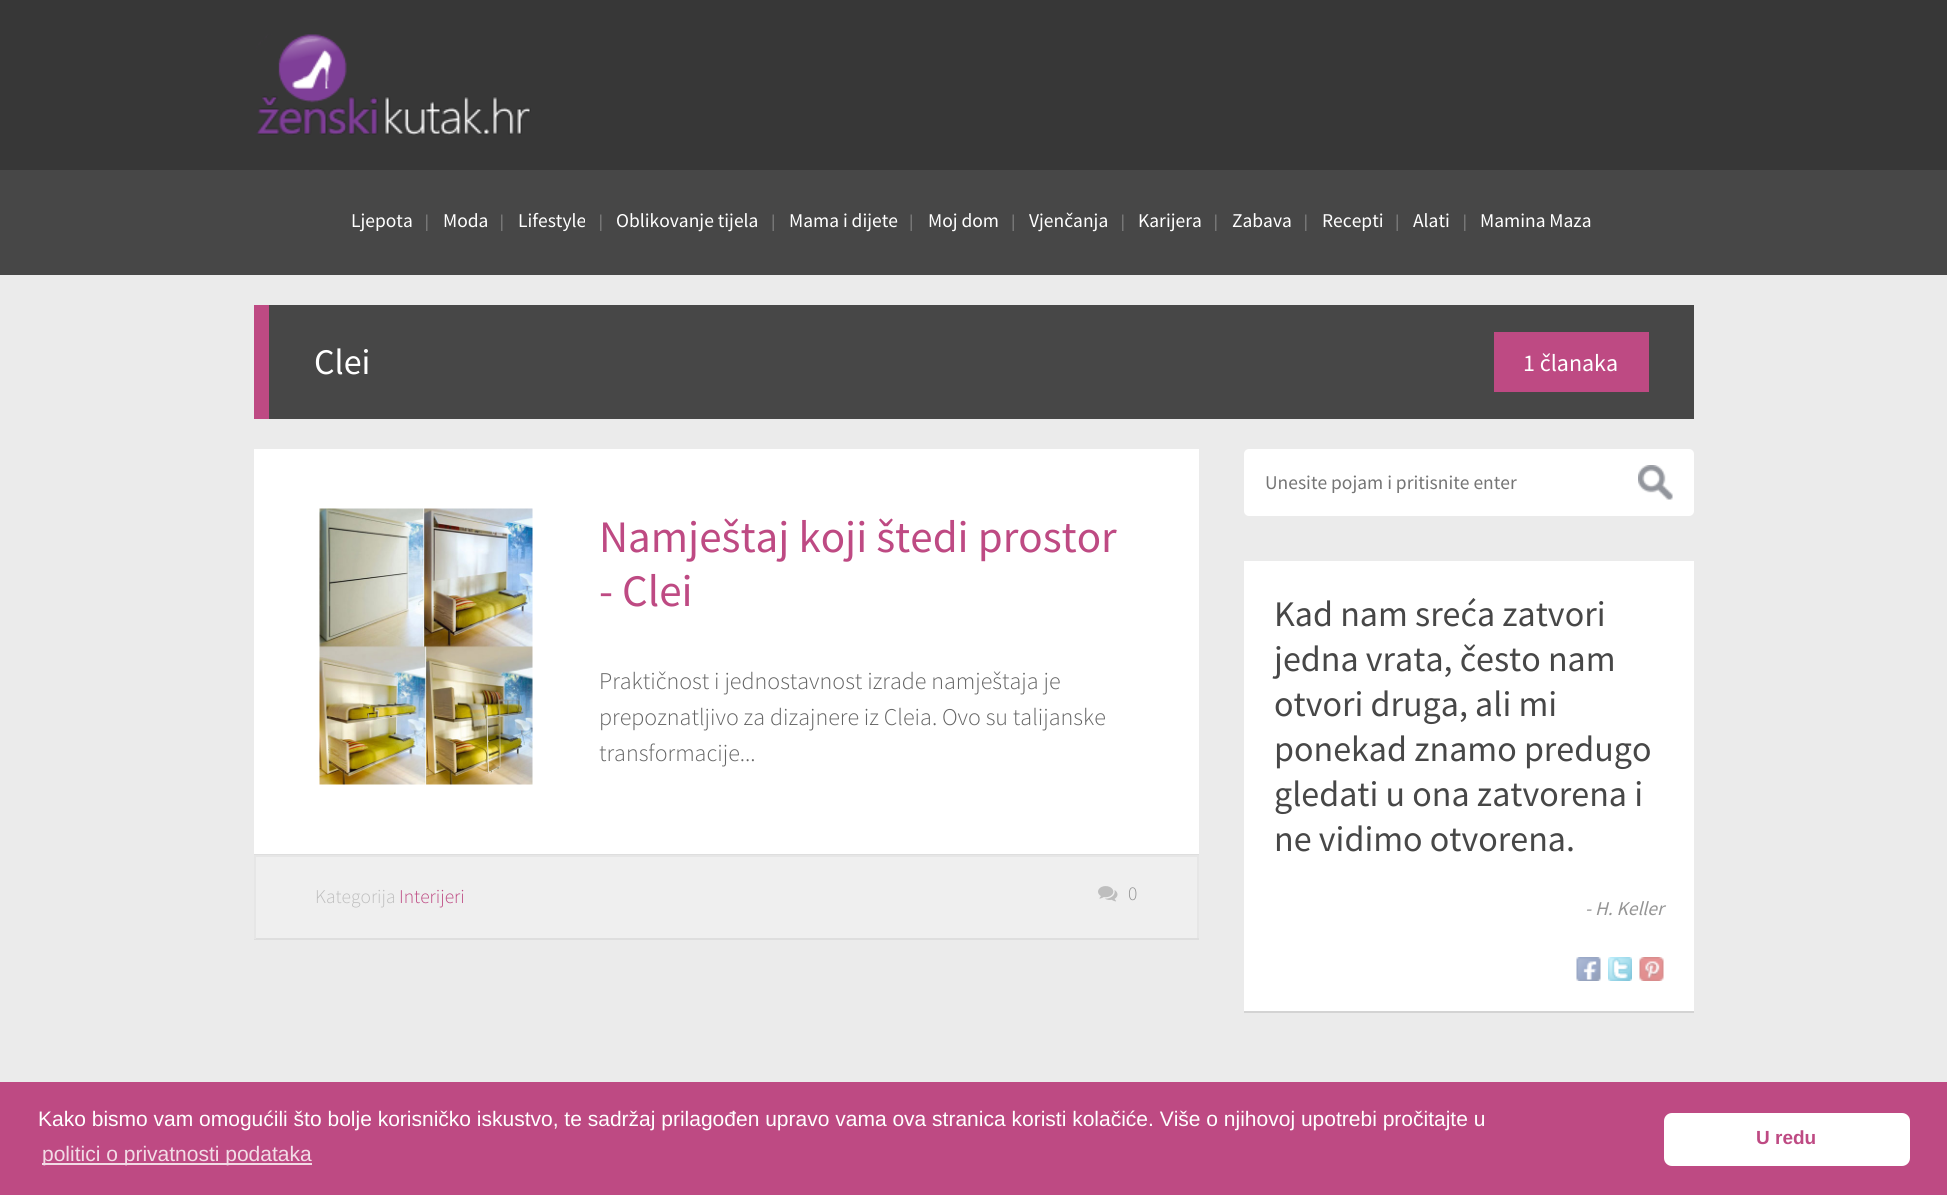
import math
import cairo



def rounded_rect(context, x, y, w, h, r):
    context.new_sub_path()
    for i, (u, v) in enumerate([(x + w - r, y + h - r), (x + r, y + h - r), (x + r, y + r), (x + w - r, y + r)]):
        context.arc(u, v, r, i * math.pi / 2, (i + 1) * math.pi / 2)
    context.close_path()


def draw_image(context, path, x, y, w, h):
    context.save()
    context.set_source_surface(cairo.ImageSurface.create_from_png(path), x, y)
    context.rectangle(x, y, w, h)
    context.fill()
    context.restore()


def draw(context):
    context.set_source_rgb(235 / 255, 235 / 255, 235 / 255)
    context.paint()
    context.set_source_rgb(55 / 255, 55 / 255, 55 / 255)
    context.rectangle(0, 0, 1947, 170)
    context.fill()
    draw_image(context, "images/1.png", 256, 34, 275, 101)
    context.set_source_rgb(71 / 255, 71 / 255, 71 / 255)
    context.rectangle(0, 170, 1947, 105)
    context.fill()
    draw_image(context, "images/2.png", 426, 214, 2, 17)
    draw_image(context, "images/2.png", 501, 214, 2, 17)
    draw_image(context, "images/2.png", 600, 214, 2, 17)
    draw_image(context, "images/3.png", 772, 214, 2, 17)
    draw_image(context, "images/3.png", 910, 214, 2, 17)
    draw_image(context, "images/3.png", 1012, 214, 2, 17)
    draw_image(context, "images/2.png", 1122, 214, 2, 17)
    draw_image(context, "images/2.png", 1215, 214, 2, 17)
    draw_image(context, "images/2.png", 1305, 214, 2, 17)
    draw_image(context, "images/3.png", 1396, 214, 2, 17)
    draw_image(context, "images/2.png", 1464, 214, 2, 17)
    context.rectangle(269, 305, 1425, 114)
    context.fill()
    context.set_source_rgb(190 / 255, 74 / 255, 131 / 255)
    context.rectangle(254, 305, 15, 114)
    context.fill()
    context.rectangle(1494, 332, 155, 60)
    context.fill()
    context.set_source_rgb(1, 1, 1)
    context.rectangle(254, 449, 945, 405)
    context.fill()
    context.set_source_rgb(222 / 255, 222 / 255, 222 / 255)
    context.rectangle(254, 854, 945, 1)
    context.fill()
    draw_image(context, "images/4.png", 319, 508, 214, 277)
    context.set_source_rgb(239 / 255, 239 / 255, 239 / 255)
    context.rectangle(256, 857, 941, 81)
    context.fill()
    context.set_source_rgb(230 / 255, 230 / 255, 230 / 255)
    context.rectangle(254, 855, 945, 2)
    context.fill()
    context.rectangle(1197, 855, 2, 84)
    context.fill()
    context.set_source_rgb(222 / 255, 222 / 255, 222 / 255)
    context.rectangle(254, 938, 945, 2)
    context.fill()
    context.set_source_rgb(230 / 255, 230 / 255, 230 / 255)
    context.rectangle(254, 855, 2, 84)
    context.fill()
    draw_image(context, "images/5.png", 1098, 886, 20, 16)
    context.set_source_rgb(1, 1, 1)
    rounded_rect(context, 1244, 449, 450, 67, 5)
    context.fill()
    draw_image(context, "images/6.png", 1638, 465, 35, 35)
    context.rectangle(1244, 561, 450, 450)
    context.fill()
    context.set_source_rgb(211 / 255, 211 / 255, 211 / 255)
    context.rectangle(1244, 1011, 450, 2)
    context.fill()
    draw_image(context, "images/7.png", 1576, 957, 25, 24)
    draw_image(context, "images/8.png", 1608, 957, 24, 24)
    draw_image(context, "images/9.png", 1639, 957, 25, 24)
    context.set_source_rgb(190 / 255, 74 / 255, 131 / 255)
    context.rectangle(0, 1082, 1947, 113)
    context.fill()
    context.set_source_rgb(242 / 255, 219 / 255, 230 / 255)
    context.rectangle(42, 1163, 270, 2)
    context.fill()
    context.set_source_rgb(1, 1, 1)
    rounded_rect(context, 1664, 1113, 246, 53, 8)
    context.fill()
    context.select_font_face("Source Sans Pro")
    context.set_font_size(19.5)
    context.move_to(351, 227)
    context.show_text("Ljepota")
    context.move_to(443, 227)
    context.show_text("Moda")
    context.move_to(518, 227)
    context.show_text("Lifestyle")
    context.move_to(616, 227)
    context.show_text("Oblikovanje tijela")
    context.move_to(789, 227)
    context.show_text("Mama i dijete")
    context.move_to(928, 227)
    context.show_text("Moj dom")
    context.move_to(1029, 227)
    context.show_text("Vjenčanja")
    context.move_to(1138, 227)
    context.show_text("Karijera")
    context.move_to(1232, 227)
    context.show_text("Zabava")
    context.move_to(1322, 227)
    context.show_text("Recepti")
    context.move_to(1413, 227)
    context.show_text("Alati")
    context.move_to(1480, 227)
    context.show_text("Mamina Maza")
    context.set_font_size(36)
    context.move_to(314, 374)
    context.show_text("Clei")
    context.set_font_size(24)
    context.move_to(1523, 371)
    context.show_text("1 članaka")
    context.set_font_size(45)
    context.set_source_rgb(190 / 255, 74 / 255, 131 / 255)
    context.move_to(599, 552)
    context.show_text("Namještaj koji štedi prostor")
    context.move_to(599, 606)
    context.show_text("- Clei")
    context.select_font_face("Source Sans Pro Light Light")
    context.set_font_size(24)
    context.set_source_rgb(100 / 255, 100 / 255, 100 / 255)
    context.move_to(599, 689)
    context.show_text("Praktičnost i jednostavnost izrade namještaja je")
    context.move_to(599, 725)
    context.show_text("prepoznatljivo za dizajnere iz Cleia. Ovo su talijanske")
    context.move_to(599, 761)
    context.show_text("transformacije...")
    context.set_font_size(19.5)
    context.set_source_rgb(190 / 255, 190 / 255, 190 / 255)
    context.move_to(315, 903)
    context.show_text("Kategorija")
    context.set_source_rgb(190 / 255, 74 / 255, 131 / 255)
    context.move_to(399, 903)
    context.show_text("Interijeri")
    context.set_source_rgb(148 / 255, 148 / 255, 148 / 255)
    context.move_to(1128, 900)
    context.show_text("0")
    context.select_font_face("Source Sans Pro")
    context.set_source_rgb(117 / 255, 117 / 255, 117 / 255)
    context.move_to(1265, 489)
    context.show_text("Unesite pojam i pritisnite enter")
    context.set_font_size(36)
    context.set_source_rgb(71 / 255, 71 / 255, 71 / 255)
    context.move_to(1274, 626)
    context.show_text("Kad nam sreća zatvori")
    context.move_to(1274, 671)
    context.show_text("jedna vrata, često nam")
    context.move_to(1274, 716)
    context.show_text("otvori druga, ali mi")
    context.move_to(1274, 761)
    context.show_text("ponekad znamo predugo")
    context.move_to(1274, 806)
    context.show_text("gledati u ona zatvorena i")
    context.move_to(1274, 851)
    context.show_text("ne vidimo otvorena.")
    context.select_font_face("Source Sans Pro", cairo.FontSlant.ITALIC)
    context.set_font_size(19.5)
    context.set_source_rgb(148 / 255, 148 / 255, 148 / 255)
    context.move_to(1585, 915)
    context.show_text("- H. Keller")
    context.select_font_face("Liberation Sans")
    context.set_font_size(21)
    context.set_source_rgb(1, 1, 1)
    context.move_to(38, 1126)
    context.show_text("Kako bismo vam omogućili što bolje korisničko iskustvo, te sadržaj prilagođen upravo vama ova stranica koristi kolačiće. Više o njihovoj upotrebi pročitajte u")
    context.set_source_rgb(242 / 255, 219 / 255, 230 / 255)
    context.move_to(42, 1161)
    context.show_text("politici o privatnosti podataka")
    context.select_font_face("Liberation Sans", cairo.FontSlant.NORMAL, cairo.FontWeight.BOLD)
    context.set_font_size(19)
    context.set_source_rgb(190 / 255, 74 / 255, 131 / 255)
    context.move_to(1756, 1144)
    context.show_text("U redu")


surface = cairo.ImageSurface(cairo.Format.RGB24, 1947, 1195)
context = cairo.Context(surface)
options = cairo.FontOptions()
options.set_hint_metrics(cairo.HintMetrics.OFF)
options.set_hint_style(cairo.HintStyle.NONE)
context.set_font_options(options)
context.set_miter_limit(4)
draw(context)
surface.write_to_png("out.png")
